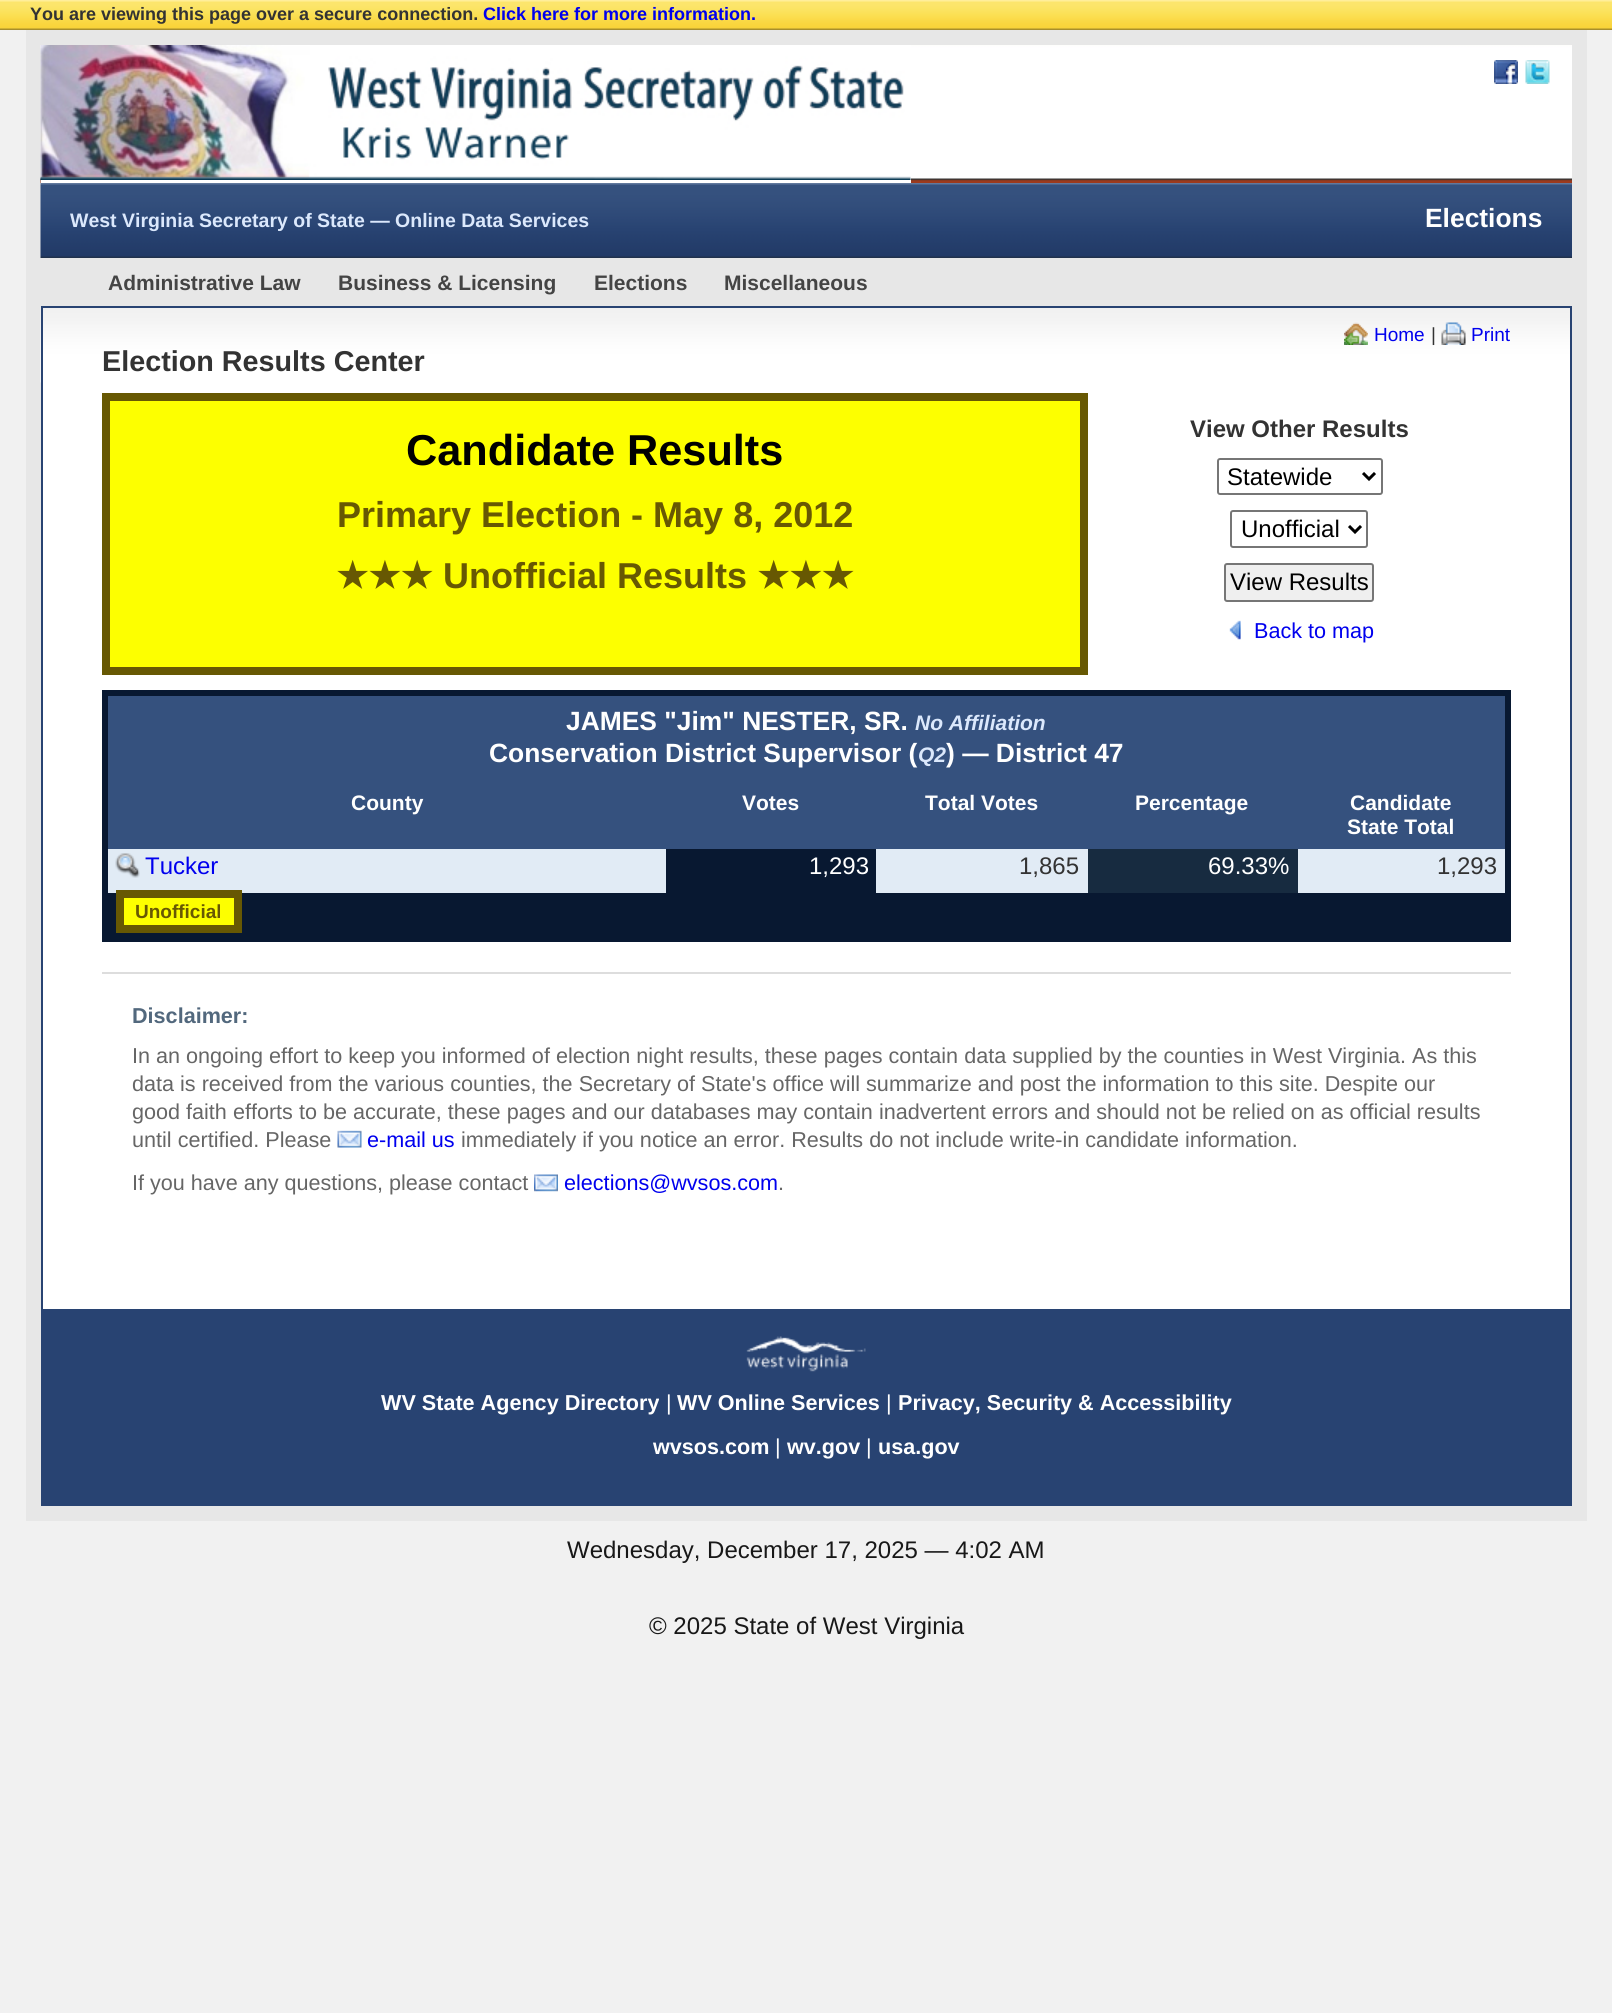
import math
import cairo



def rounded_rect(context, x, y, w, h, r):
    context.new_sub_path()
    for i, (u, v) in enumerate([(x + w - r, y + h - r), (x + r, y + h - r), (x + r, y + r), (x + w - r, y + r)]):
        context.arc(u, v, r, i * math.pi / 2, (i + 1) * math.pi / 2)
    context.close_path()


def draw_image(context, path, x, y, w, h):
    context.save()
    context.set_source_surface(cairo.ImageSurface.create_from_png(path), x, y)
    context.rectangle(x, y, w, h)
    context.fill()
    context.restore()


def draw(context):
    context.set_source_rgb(241 / 255, 241 / 255, 241 / 255)
    context.paint()
    draw_image(context, "images/1.png", 0, 0, 1612, 30)
    context.set_source_rgb(1, 1, 1)
    context.rectangle(43, 382, 1527, 927)
    context.fill()
    context.rectangle(33.5, 37.5, 1546, 1476)
    context.set_source_rgb(231 / 255, 231 / 255, 231 / 255)
    context.set_line_width(15)
    context.stroke()
    draw_image(context, "images/2.png", 40, 45, 1532, 138)
    context.set_source_rgb(1, 1, 1)
    context.rectangle(41, 45, 870, 138)
    context.fill()
    draw_image(context, "images/3.png", 40, 45, 871, 135)
    draw_image(context, "images/4.png", 1494, 60, 24, 24)
    draw_image(context, "images/5.png", 1525, 60, 25, 24)
    draw_image(context, "images/6.png", 40, 183, 1532, 75)
    context.set_source_rgb(231 / 255, 231 / 255, 231 / 255)
    context.rectangle(41, 258, 1531, 48)
    context.fill()
    draw_image(context, "images/7.png", 40, 307, 1530, 76)
    context.rectangle(42, 307, 1529, 1003)
    context.set_source_rgb(40 / 255, 67 / 255, 114 / 255)
    context.set_line_width(2)
    context.stroke()
    draw_image(context, "images/8.png", 1344, 322, 24, 23)
    draw_image(context, "images/9.png", 1441, 322, 25, 23)
    context.set_source_rgb(253 / 255, 1, 0)
    context.rectangle(106, 397, 978, 274)
    context.fill_preserve()
    context.set_source_rgb(103 / 255, 88 / 255, 3 / 255)
    context.set_line_width(8)
    context.stroke()
    rounded_rect(context, 1218, 459, 164, 35, 2)
    context.set_source_rgb(118 / 255, 118 / 255, 118 / 255)
    context.set_line_width(2)
    context.stroke()
    context.new_path()
    context.move_to(1363, 473)
    context.line_to(1369, 479)
    context.line_to(1375, 473)
    context.set_source_rgb(0, 0, 0)
    context.set_line_width(3)
    context.stroke()
    rounded_rect(context, 1231, 511, 136, 36, 2)
    context.set_source_rgb(118 / 255, 118 / 255, 118 / 255)
    context.set_line_width(2)
    context.stroke()
    context.new_path()
    context.move_to(1349, 526)
    context.line_to(1355, 532)
    context.line_to(1361, 526)
    context.set_source_rgb(0, 0, 0)
    context.set_line_width(3)
    context.stroke()
    context.set_source_rgb(239 / 255, 239 / 255, 239 / 255)
    rounded_rect(context, 1225, 564, 148, 37, 2)
    context.fill_preserve()
    context.set_source_rgb(118 / 255, 118 / 255, 118 / 255)
    context.set_line_width(2)
    context.stroke()
    draw_image(context, "images/10.png", 1229, 620, 12, 20)
    context.set_source_rgb(8 / 255, 24 / 255, 49 / 255)
    context.rectangle(102, 690, 1409, 6)
    context.fill()
    context.rectangle(1505, 690, 6, 252)
    context.fill()
    context.rectangle(102, 936, 1409, 6)
    context.fill()
    context.rectangle(102, 690, 6, 252)
    context.fill()
    context.set_source_rgb(53 / 255, 81 / 255, 126 / 255)
    context.rectangle(108, 696, 1397, 84)
    context.fill()
    context.rectangle(108, 780, 1397, 69)
    context.fill()
    context.set_source_rgb(225 / 255, 235 / 255, 245 / 255)
    context.rectangle(108, 849, 558, 44)
    context.fill()
    draw_image(context, "images/11.png", 115, 853, 25, 25)
    context.set_source_rgb(8 / 255, 24 / 255, 49 / 255)
    context.rectangle(666, 849, 210, 44)
    context.fill()
    context.set_source_rgb(225 / 255, 235 / 255, 245 / 255)
    context.rectangle(876, 849, 212, 44)
    context.fill()
    context.set_source_rgb(23 / 255, 43 / 255, 64 / 255)
    context.rectangle(1088, 849, 210, 44)
    context.fill()
    context.set_source_rgb(225 / 255, 235 / 255, 245 / 255)
    context.rectangle(1298, 849, 207, 44)
    context.fill()
    context.set_source_rgb(8 / 255, 24 / 255, 49 / 255)
    context.rectangle(108, 893, 1397, 43)
    context.fill()
    context.set_source_rgb(253 / 255, 1, 0)
    context.rectangle(120, 894, 118, 35)
    context.fill_preserve()
    context.set_source_rgb(103 / 255, 88 / 255, 3 / 255)
    context.set_line_width(8)
    context.stroke()
    context.set_source_rgb(221 / 255, 221 / 255, 221 / 255)
    context.rectangle(102, 972, 1409, 2)
    context.fill()
    draw_image(context, "images/12.png", 337, 1130, 25, 18)
    draw_image(context, "images/13.png", 534, 1174, 24, 18)
    context.set_source_rgb(40 / 255, 67 / 255, 114 / 255)
    context.rectangle(41, 1311, 1531, 195)
    context.fill()
    draw_image(context, "images/14.png", 746, 1336, 120, 36)
    context.select_font_face("Liberation Sans", cairo.FontSlant.NORMAL, cairo.FontWeight.BOLD)
    context.set_font_size(18)
    context.set_source_rgb(51 / 255, 51 / 255, 51 / 255)
    context.move_to(30, 20)
    context.show_text("You are viewing this page over a secure connection.")
    context.set_source_rgb(0, 0, 238 / 255)
    context.move_to(483, 20)
    context.show_text("Click here for more information.")
    context.set_font_size(19.5)
    context.set_source_rgb(219 / 255, 232 / 255, 252 / 255)
    context.move_to(70, 227)
    context.show_text("West Virginia Secretary of State — Online Data Services")
    context.set_font_size(26.4)
    context.set_source_rgb(1, 1, 1)
    context.move_to(1425, 227)
    context.show_text("Elections")
    context.set_font_size(21)
    context.set_source_rgb(68 / 255, 68 / 255, 68 / 255)
    context.move_to(108, 290)
    context.show_text("Administrative Law")
    context.move_to(338, 290)
    context.show_text("Business & Licensing")
    context.move_to(594, 290)
    context.show_text("Elections")
    context.move_to(724, 290)
    context.show_text("Miscellaneous")
    context.select_font_face("Liberation Sans")
    context.set_font_size(19)
    context.set_source_rgb(0, 0, 238 / 255)
    context.move_to(1374, 341)
    context.show_text("Home")
    context.set_source_rgb(51 / 255, 51 / 255, 51 / 255)
    context.move_to(1431, 341)
    context.show_text("|")
    context.set_source_rgb(0, 0, 238 / 255)
    context.move_to(1471, 341)
    context.show_text("Print")
    context.select_font_face("Liberation Sans", cairo.FontSlant.NORMAL, cairo.FontWeight.BOLD)
    context.set_font_size(28.75)
    context.set_source_rgb(51 / 255, 51 / 255, 51 / 255)
    context.move_to(102, 371)
    context.show_text("Election Results Center")
    context.set_font_size(43.25)
    context.set_source_rgb(0, 0, 0)
    context.move_to(406, 465)
    context.show_text("Candidate Results")
    context.set_font_size(36)
    context.set_source_rgb(103 / 255, 88 / 255, 3 / 255)
    context.move_to(337, 527)
    context.show_text("Primary Election - May 8, 2012")
    context.select_font_face("DejaVu Sans", cairo.FontSlant.NORMAL, cairo.FontWeight.BOLD)
    context.move_to(336, 588)
    context.show_text("★★★")
    context.select_font_face("Liberation Sans", cairo.FontSlant.NORMAL, cairo.FontWeight.BOLD)
    context.move_to(443, 588)
    context.show_text("Unofficial Results")
    context.select_font_face("DejaVu Sans", cairo.FontSlant.NORMAL, cairo.FontWeight.BOLD)
    context.move_to(757, 588)
    context.show_text("★★★")
    context.select_font_face("Liberation Sans", cairo.FontSlant.NORMAL, cairo.FontWeight.BOLD)
    context.set_font_size(24)
    context.set_source_rgb(51 / 255, 51 / 255, 51 / 255)
    context.move_to(1190, 437)
    context.show_text("View Other Results")
    context.select_font_face("Liberation Sans")
    context.set_source_rgb(0, 0, 0)
    context.move_to(1227, 485)
    context.show_text("Statewide")
    context.move_to(1241, 537)
    context.show_text("Unofficial")
    context.move_to(1230, 590)
    context.show_text("View Results")
    context.set_font_size(21.6)
    context.set_source_rgb(0, 0, 238 / 255)
    context.move_to(1254, 638)
    context.show_text("Back to map")
    context.select_font_face("Liberation Sans", cairo.FontSlant.NORMAL, cairo.FontWeight.BOLD)
    context.set_font_size(26.4)
    context.set_source_rgb(1, 1, 1)
    context.move_to(566, 730)
    context.show_text("JAMES \"Jim\" NESTER, SR.")
    context.select_font_face("Liberation Sans", cairo.FontSlant.ITALIC, cairo.FontWeight.BOLD)
    context.set_font_size(21)
    context.set_source_rgb(219 / 255, 232 / 255, 252 / 255)
    context.move_to(915, 730)
    context.show_text("No Affiliation")
    context.select_font_face("Liberation Sans", cairo.FontSlant.NORMAL, cairo.FontWeight.BOLD)
    context.set_font_size(26.4)
    context.set_source_rgb(1, 1, 1)
    context.move_to(489, 762)
    context.show_text("Conservation District Supervisor (")
    context.select_font_face("Liberation Sans", cairo.FontSlant.ITALIC, cairo.FontWeight.BOLD)
    context.set_font_size(21)
    context.set_source_rgb(219 / 255, 232 / 255, 252 / 255)
    context.move_to(918, 762)
    context.show_text("Q2")
    context.select_font_face("Liberation Sans", cairo.FontSlant.NORMAL, cairo.FontWeight.BOLD)
    context.set_font_size(26.4)
    context.set_source_rgb(1, 1, 1)
    context.move_to(946, 762)
    context.show_text(") — District 47")
    context.set_font_size(21)
    context.move_to(351, 810)
    context.show_text("County")
    context.move_to(742, 810)
    context.show_text("Votes")
    context.move_to(925, 810)
    context.show_text("Total Votes")
    context.move_to(1135, 810)
    context.show_text("Percentage")
    context.move_to(1350, 810)
    context.show_text("Candidate")
    context.move_to(1347, 834)
    context.show_text("State Total")
    context.select_font_face("Liberation Sans")
    context.set_font_size(24)
    context.set_source_rgb(0, 0, 238 / 255)
    context.move_to(145, 874)
    context.show_text("Tucker")
    context.set_source_rgb(1, 1, 1)
    context.move_to(809, 874)
    context.show_text("1,293")
    context.set_source_rgb(51 / 255, 51 / 255, 51 / 255)
    context.move_to(1019, 874)
    context.show_text("1,865")
    context.set_source_rgb(1, 1, 1)
    context.move_to(1208, 874)
    context.show_text("69.33%")
    context.set_source_rgb(51 / 255, 51 / 255, 51 / 255)
    context.move_to(1437, 874)
    context.show_text("1,293")
    context.select_font_face("Liberation Sans", cairo.FontSlant.NORMAL, cairo.FontWeight.BOLD)
    context.set_font_size(19)
    context.set_source_rgb(103 / 255, 88 / 255, 3 / 255)
    context.move_to(135, 918)
    context.show_text("Unofficial")
    context.set_font_size(21.6)
    context.set_source_rgb(82 / 255, 104 / 255, 125 / 255)
    context.move_to(132, 1023)
    context.show_text("Disclaimer:")
    context.select_font_face("Liberation Sans")
    context.set_source_rgb(102 / 255, 102 / 255, 102 / 255)
    context.move_to(132, 1063)
    context.show_text("In an ongoing effort to keep you informed of election night results, these pages contain data supplied by the counties in West Virginia. As this")
    context.move_to(132, 1091)
    context.show_text("data is received from the various counties, the Secretary of State's office will summarize and post the information to this site. Despite our")
    context.move_to(132, 1119)
    context.show_text("good faith efforts to be accurate, these pages and our databases may contain inadvertent errors and should not be relied on as official results")
    context.move_to(132, 1147)
    context.show_text("until certified. Please")
    context.set_source_rgb(0, 0, 238 / 255)
    context.move_to(367, 1147)
    context.show_text("e-mail us")
    context.set_source_rgb(102 / 255, 102 / 255, 102 / 255)
    context.move_to(461, 1147)
    context.show_text("immediately if you notice an error. Results do not include write-in candidate information.")
    context.move_to(132, 1190)
    context.show_text("If you have any questions, please contact")
    context.set_source_rgb(0, 0, 238 / 255)
    context.move_to(564, 1190)
    context.show_text("elections@wvsos.com")
    context.set_source_rgb(102 / 255, 102 / 255, 102 / 255)
    context.move_to(778, 1190)
    context.show_text(".")
    context.select_font_face("Liberation Sans", cairo.FontSlant.NORMAL, cairo.FontWeight.BOLD)
    context.set_source_rgb(1, 1, 1)
    context.move_to(381, 1410)
    context.show_text("WV State Agency Directory")
    context.select_font_face("Liberation Sans")
    context.move_to(666, 1410)
    context.show_text("|")
    context.select_font_face("Liberation Sans", cairo.FontSlant.NORMAL, cairo.FontWeight.BOLD)
    context.move_to(677, 1410)
    context.show_text("WV Online Services")
    context.select_font_face("Liberation Sans")
    context.move_to(886, 1410)
    context.show_text("|")
    context.select_font_face("Liberation Sans", cairo.FontSlant.NORMAL, cairo.FontWeight.BOLD)
    context.move_to(898, 1410)
    context.show_text("Privacy, Security & Accessibility")
    context.move_to(653, 1454)
    context.show_text("wvsos.com")
    context.select_font_face("Liberation Sans")
    context.move_to(775, 1454)
    context.show_text("|")
    context.select_font_face("Liberation Sans", cairo.FontSlant.NORMAL, cairo.FontWeight.BOLD)
    context.move_to(787, 1454)
    context.show_text("wv.gov")
    context.select_font_face("Liberation Sans")
    context.move_to(866, 1454)
    context.show_text("|")
    context.select_font_face("Liberation Sans", cairo.FontSlant.NORMAL, cairo.FontWeight.BOLD)
    context.move_to(878, 1454)
    context.show_text("usa.gov")
    context.select_font_face("Liberation Sans")
    context.set_font_size(24)
    context.set_source_rgb(24 / 255, 24 / 255, 24 / 255)
    context.move_to(567, 1558)
    context.show_text("Wednesday, December 17, 2025 — 4:02 AM")
    context.move_to(649, 1634)
    context.show_text("© 2025 State of West Virginia")


surface = cairo.ImageSurface(cairo.Format.RGB24, 1612, 2013)
context = cairo.Context(surface)
options = cairo.FontOptions()
options.set_hint_metrics(cairo.HintMetrics.OFF)
options.set_hint_style(cairo.HintStyle.NONE)
context.set_font_options(options)
context.set_miter_limit(4)
draw(context)
surface.write_to_png("out.png")
